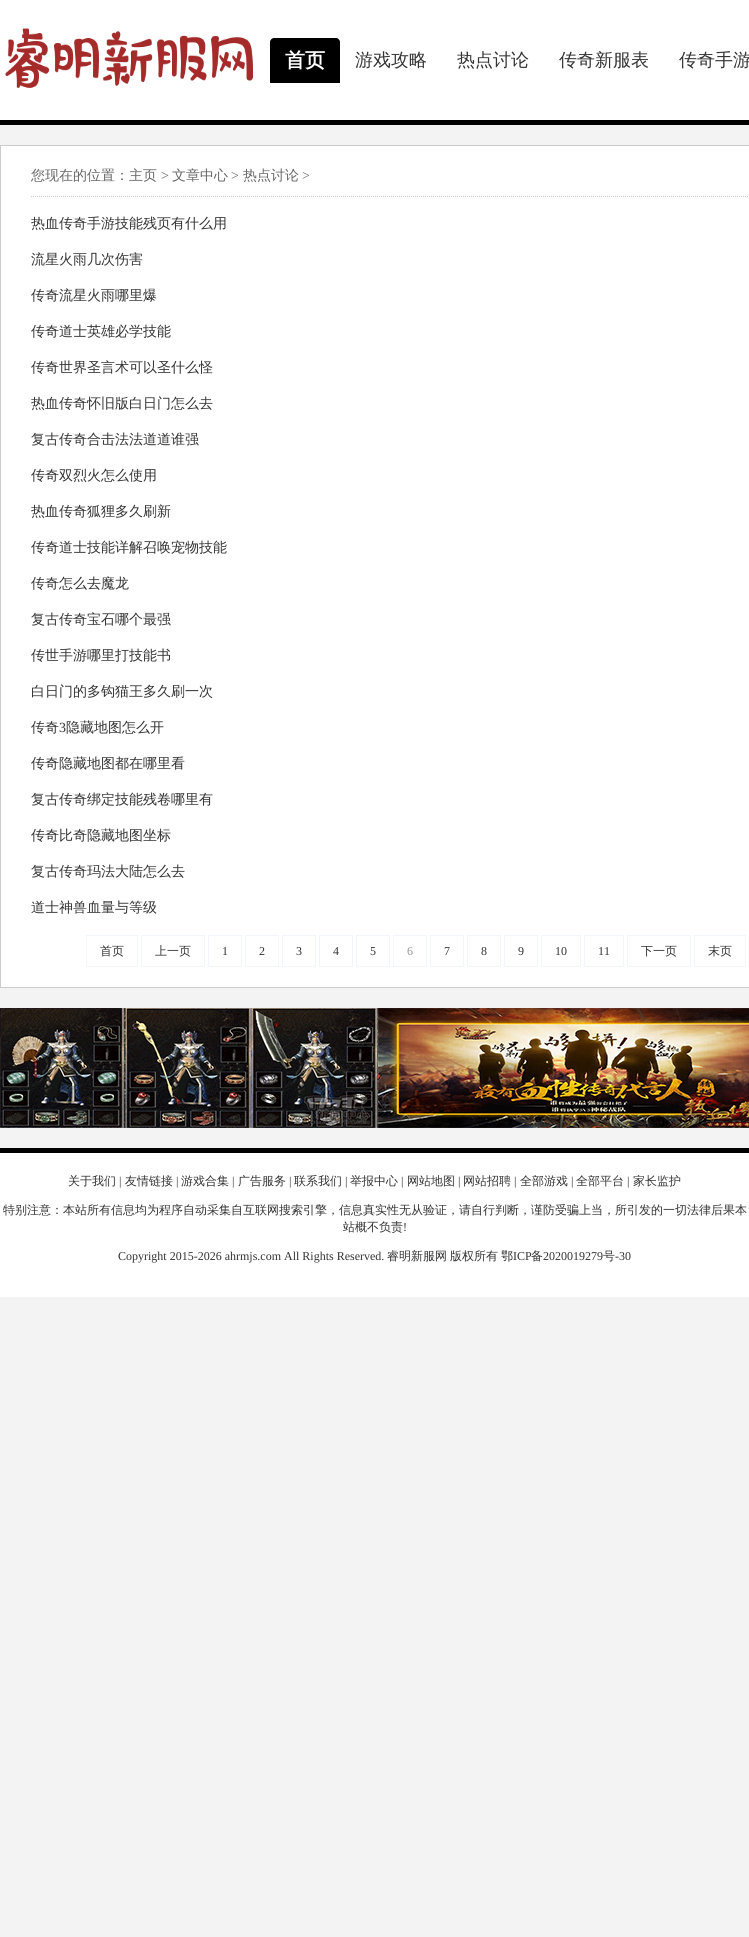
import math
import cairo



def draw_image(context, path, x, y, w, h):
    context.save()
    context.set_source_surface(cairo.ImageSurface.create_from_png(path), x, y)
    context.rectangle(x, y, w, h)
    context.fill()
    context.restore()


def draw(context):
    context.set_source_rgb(243 / 255, 243 / 255, 243 / 255)
    context.paint()
    context.set_source_rgb(1, 1, 1)
    context.rectangle(0, 0, 749, 120)
    context.fill()
    context.set_source_rgb(0, 0, 0)
    context.rectangle(0, 120, 749, 5)
    context.fill()
    draw_image(context, "images/1.png", 5, 28, 248, 60)
    context.new_path()
    context.move_to(274, 38)
    context.line_to(336, 38)
    context.curve_to(338, 38, 340, 40, 340, 42)
    context.line_to(340, 83)
    context.line_to(270, 83)
    context.line_to(270, 42)
    context.curve_to(270, 40, 272, 38, 274, 38)
    context.close_path()
    context.fill()
    context.set_source_rgb(1, 1, 1)
    context.rectangle(0.5, 145.5, 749, 842)
    context.fill_preserve()
    context.set_source_rgb(204 / 255, 204 / 255, 204 / 255)
    context.set_line_width(1)
    context.stroke()
    context.new_path()
    context.move_to(31, 196.5)
    context.line_to(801, 196.5)
    context.set_dash([1, 1])
    context.stroke()
    context.rectangle(86.5, 935.5, 51, 31)
    context.set_source_rgb(242 / 255, 246 / 255, 252 / 255)
    context.set_dash([])
    context.stroke()
    context.rectangle(141.5, 935.5, 63, 31)
    context.stroke()
    context.rectangle(208.5, 935.5, 33, 31)
    context.stroke()
    context.rectangle(245.5, 935.5, 33, 31)
    context.stroke()
    context.rectangle(282.5, 935.5, 33, 31)
    context.stroke()
    context.rectangle(319.5, 935.5, 33, 31)
    context.stroke()
    context.rectangle(356.5, 935.5, 33, 31)
    context.stroke()
    context.rectangle(393.5, 935.5, 33, 31)
    context.stroke()
    context.rectangle(430.5, 935.5, 33, 31)
    context.stroke()
    context.rectangle(467.5, 935.5, 33, 31)
    context.stroke()
    context.rectangle(504.5, 935.5, 33, 31)
    context.stroke()
    context.rectangle(541.5, 935.5, 39, 31)
    context.stroke()
    context.rectangle(584.5, 935.5, 39, 31)
    context.stroke()
    context.rectangle(627.5, 935.5, 63, 31)
    context.stroke()
    context.rectangle(694.5, 935.5, 51, 31)
    context.stroke()
    draw_image(context, "images/2.png", 0, 1008, 749, 120)
    context.set_source_rgb(1, 1, 1)
    context.rectangle(0, 1153, 749, 144)
    context.fill()
    context.set_source_rgb(0, 0, 0)
    context.rectangle(0, 1148, 749, 5)
    context.fill()
    context.select_font_face("WenQuanYi Zen Hei", cairo.FontSlant.NORMAL, cairo.FontWeight.BOLD)
    context.set_font_size(20)
    context.set_source_rgb(1, 1, 1)
    context.move_to(285, 67)
    context.show_text("首页")
    context.select_font_face("WenQuanYi Zen Hei Medium")
    context.set_font_size(18)
    context.set_source_rgb(51 / 255, 51 / 255, 51 / 255)
    context.move_to(355, 66)
    context.show_text("游戏攻略")
    context.move_to(457, 66)
    context.show_text("热点讨论")
    context.move_to(559, 66)
    context.show_text("传奇新服表")
    context.move_to(679, 66)
    context.show_text("传奇手游")
    context.set_font_size(14)
    context.set_source_rgb(102 / 255, 102 / 255, 102 / 255)
    context.move_to(31, 180)
    context.show_text("您现在的位置：主页")
    context.select_font_face("Liberation Serif")
    context.move_to(161, 180)
    context.show_text(">")
    context.select_font_face("WenQuanYi Zen Hei Medium")
    context.move_to(172, 180)
    context.show_text("文章中心")
    context.select_font_face("Liberation Serif")
    context.move_to(231, 180)
    context.show_text(">")
    context.select_font_face("WenQuanYi Zen Hei Medium")
    context.move_to(243, 180)
    context.show_text("热点讨论")
    context.select_font_face("Liberation Serif")
    context.move_to(302, 180)
    context.show_text(">")
    context.select_font_face("WenQuanYi Zen Hei Medium")
    context.set_source_rgb(51 / 255, 51 / 255, 51 / 255)
    context.move_to(31, 228)
    context.show_text("热血传奇手游技能残页有什么用")
    context.move_to(31, 264)
    context.show_text("流星火雨几次伤害")
    context.move_to(31, 300)
    context.show_text("传奇流星火雨哪里爆")
    context.move_to(31, 336)
    context.show_text("传奇道士英雄必学技能")
    context.move_to(31, 372)
    context.show_text("传奇世界圣言术可以圣什么怪")
    context.move_to(31, 408)
    context.show_text("热血传奇怀旧版白日门怎么去")
    context.move_to(31, 444)
    context.show_text("复古传奇合击法法道道谁强")
    context.move_to(31, 480)
    context.show_text("传奇双烈火怎么使用")
    context.move_to(31, 516)
    context.show_text("热血传奇狐狸多久刷新")
    context.move_to(31, 552)
    context.show_text("传奇道士技能详解召唤宠物技能")
    context.move_to(31, 588)
    context.show_text("传奇怎么去魔龙")
    context.move_to(31, 624)
    context.show_text("复古传奇宝石哪个最强")
    context.move_to(31, 660)
    context.show_text("传世手游哪里打技能书")
    context.move_to(31, 696)
    context.show_text("白日门的多钩猫王多久刷一次")
    context.move_to(31, 732)
    context.show_text("传奇")
    context.select_font_face("Liberation Serif")
    context.move_to(59, 732)
    context.show_text("3")
    context.select_font_face("WenQuanYi Zen Hei Medium")
    context.move_to(66, 732)
    context.show_text("隐藏地图怎么开")
    context.move_to(31, 768)
    context.show_text("传奇隐藏地图都在哪里看")
    context.move_to(31, 804)
    context.show_text("复古传奇绑定技能残卷哪里有")
    context.move_to(31, 840)
    context.show_text("传奇比奇隐藏地图坐标")
    context.move_to(31, 876)
    context.show_text("复古传奇玛法大陆怎么去")
    context.move_to(31, 912)
    context.show_text("道士神兽血量与等级")
    context.set_font_size(12)
    context.move_to(100, 955)
    context.show_text("首页")
    context.move_to(155, 955)
    context.show_text("上一页")
    context.select_font_face("Liberation Serif")
    context.move_to(222, 955)
    context.show_text("1")
    context.move_to(259, 955)
    context.show_text("2")
    context.move_to(296, 955)
    context.show_text("3")
    context.move_to(333, 955)
    context.show_text("4")
    context.move_to(370, 955)
    context.show_text("5")
    context.set_source_rgb(153 / 255, 153 / 255, 153 / 255)
    context.move_to(407, 955)
    context.show_text("6")
    context.set_source_rgb(51 / 255, 51 / 255, 51 / 255)
    context.move_to(444, 955)
    context.show_text("7")
    context.move_to(481, 955)
    context.show_text("8")
    context.move_to(518, 955)
    context.show_text("9")
    context.move_to(555, 955)
    context.show_text("10")
    context.move_to(598, 955)
    context.show_text("11")
    context.select_font_face("WenQuanYi Zen Hei Medium")
    context.move_to(641, 955)
    context.show_text("下一页")
    context.move_to(708, 955)
    context.show_text("末页")
    context.move_to(68, 1185)
    context.show_text("关于我们")
    context.select_font_face("Liberation Serif")
    context.move_to(119, 1185)
    context.show_text("|")
    context.select_font_face("WenQuanYi Zen Hei Medium")
    context.move_to(125, 1185)
    context.show_text("友情链接")
    context.select_font_face("Liberation Serif")
    context.move_to(176, 1185)
    context.show_text("|")
    context.select_font_face("WenQuanYi Zen Hei Medium")
    context.move_to(181, 1185)
    context.show_text("游戏合集")
    context.select_font_face("Liberation Serif")
    context.move_to(232, 1185)
    context.show_text("|")
    context.select_font_face("WenQuanYi Zen Hei Medium")
    context.move_to(238, 1185)
    context.show_text("广告服务")
    context.select_font_face("Liberation Serif")
    context.move_to(289, 1185)
    context.show_text("|")
    context.select_font_face("WenQuanYi Zen Hei Medium")
    context.move_to(294, 1185)
    context.show_text("联系我们")
    context.select_font_face("Liberation Serif")
    context.move_to(345, 1185)
    context.show_text("|")
    context.select_font_face("WenQuanYi Zen Hei Medium")
    context.move_to(350, 1185)
    context.show_text("举报中心")
    context.select_font_face("Liberation Serif")
    context.move_to(401, 1185)
    context.show_text("|")
    context.select_font_face("WenQuanYi Zen Hei Medium")
    context.move_to(407, 1185)
    context.show_text("网站地图")
    context.select_font_face("Liberation Serif")
    context.move_to(458, 1185)
    context.show_text("|")
    context.select_font_face("WenQuanYi Zen Hei Medium")
    context.move_to(463, 1185)
    context.show_text("网站招聘")
    context.select_font_face("Liberation Serif")
    context.move_to(514, 1185)
    context.show_text("|")
    context.select_font_face("WenQuanYi Zen Hei Medium")
    context.move_to(520, 1185)
    context.show_text("全部游戏")
    context.select_font_face("Liberation Serif")
    context.move_to(571, 1185)
    context.show_text("|")
    context.select_font_face("WenQuanYi Zen Hei Medium")
    context.move_to(576, 1185)
    context.show_text("全部平台")
    context.select_font_face("Liberation Serif")
    context.move_to(627, 1185)
    context.show_text("|")
    context.select_font_face("WenQuanYi Zen Hei Medium")
    context.move_to(633, 1185)
    context.show_text("家长监护")
    context.move_to(3, 1214)
    context.show_text("特别注意：本站所有信息均为程序自动采集自互联网搜索引擎，信息真实性无从验证，请自行判断，谨防受骗上当，所引发的一切法律后果本")
    context.move_to(343, 1231)
    context.show_text("站概不负责")
    context.select_font_face("Liberation Serif")
    context.move_to(403, 1231)
    context.show_text("!")
    context.move_to(118, 1260)
    context.show_text("Copyright 2015-2026 ahrmjs.com All Rights Reserved.")
    context.select_font_face("WenQuanYi Zen Hei Medium")
    context.move_to(387, 1260)
    context.show_text("睿明新服网")
    context.move_to(450, 1260)
    context.show_text("版权所有")
    context.move_to(501, 1260)
    context.show_text("鄂")
    context.select_font_face("Liberation Serif")
    context.move_to(513, 1260)
    context.show_text("ICP")
    context.select_font_face("WenQuanYi Zen Hei Medium")
    context.move_to(531, 1260)
    context.show_text("备")
    context.select_font_face("Liberation Serif")
    context.move_to(543, 1260)
    context.show_text("2020019279")
    context.select_font_face("WenQuanYi Zen Hei Medium")
    context.move_to(603, 1260)
    context.show_text("号")
    context.select_font_face("Liberation Serif")
    context.move_to(615, 1260)
    context.show_text("-30")


surface = cairo.ImageSurface(cairo.Format.RGB24, 749, 1937)
context = cairo.Context(surface)
options = cairo.FontOptions()
options.set_hint_metrics(cairo.HintMetrics.OFF)
options.set_hint_style(cairo.HintStyle.NONE)
context.set_font_options(options)
context.set_miter_limit(4)
draw(context)
surface.write_to_png("out.png")
